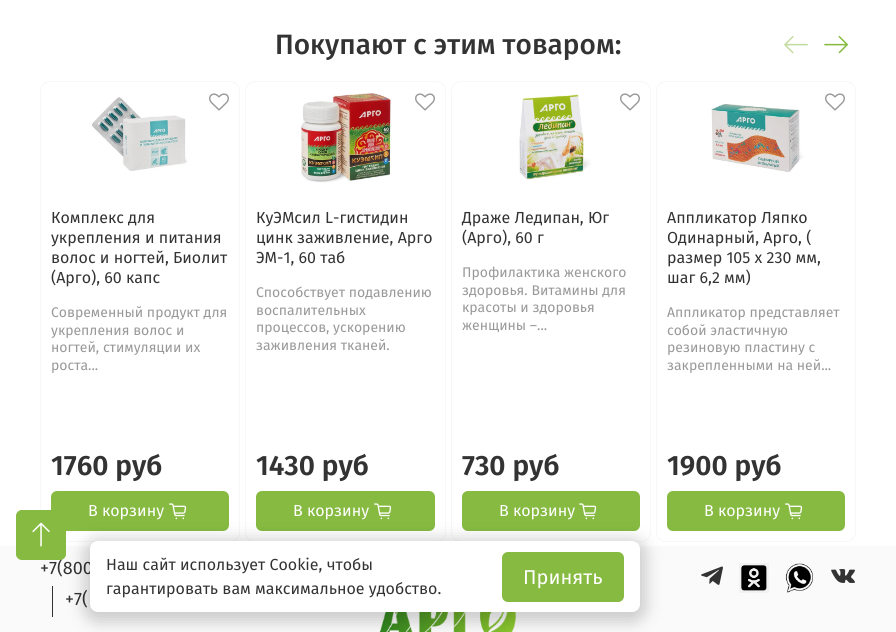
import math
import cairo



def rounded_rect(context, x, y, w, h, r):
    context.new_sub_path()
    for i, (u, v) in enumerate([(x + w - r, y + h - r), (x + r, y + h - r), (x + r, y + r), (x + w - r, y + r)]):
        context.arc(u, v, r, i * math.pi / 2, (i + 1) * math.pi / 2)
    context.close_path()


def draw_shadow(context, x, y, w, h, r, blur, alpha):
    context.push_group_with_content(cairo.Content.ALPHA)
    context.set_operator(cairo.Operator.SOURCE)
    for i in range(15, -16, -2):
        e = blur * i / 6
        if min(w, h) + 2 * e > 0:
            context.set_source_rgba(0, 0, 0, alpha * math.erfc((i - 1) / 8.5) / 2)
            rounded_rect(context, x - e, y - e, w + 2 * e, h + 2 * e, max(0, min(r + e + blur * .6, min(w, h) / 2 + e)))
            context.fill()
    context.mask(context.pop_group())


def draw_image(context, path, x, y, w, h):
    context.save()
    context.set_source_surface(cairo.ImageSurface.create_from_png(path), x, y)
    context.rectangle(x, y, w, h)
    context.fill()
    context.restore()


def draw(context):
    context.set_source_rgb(1, 1, 1)
    context.paint()
    draw_image(context, "images/1.png", 784, 36, 24, 18)
    draw_image(context, "images/2.png", 824, 36, 24, 18)
    rounded_rect(context, 40.5, 81.5, 199, 460, 9.5)
    context.set_source_rgb(247 / 255, 247 / 255, 247 / 255)
    context.set_line_width(1)
    context.stroke()
    draw_image(context, "images/3.png", 92, 97, 96, 74)
    draw_image(context, "images/4.png", 209, 93, 20, 18)
    context.set_source_rgb(134 / 255, 186 / 255, 65 / 255)
    rounded_rect(context, 51, 491, 178, 40, 6)
    context.fill()
    draw_image(context, "images/5.png", 169, 503, 18, 17)
    rounded_rect(context, 245.5, 81.5, 200, 460, 9.5)
    context.set_source_rgb(247 / 255, 247 / 255, 247 / 255)
    context.stroke()
    draw_image(context, "images/6.png", 301, 93, 90, 90)
    draw_image(context, "images/4.png", 415, 93, 20, 18)
    context.set_source_rgb(134 / 255, 186 / 255, 65 / 255)
    rounded_rect(context, 256, 491, 179, 40, 6)
    context.fill()
    draw_image(context, "images/5.png", 374, 503, 18, 17)
    rounded_rect(context, 451.5, 81.5, 199, 460, 9.5)
    context.set_source_rgb(247 / 255, 247 / 255, 247 / 255)
    context.stroke()
    draw_image(context, "images/7.png", 518, 94, 73, 86)
    draw_image(context, "images/4.png", 620, 93, 20, 18)
    context.set_source_rgb(134 / 255, 186 / 255, 65 / 255)
    rounded_rect(context, 462, 491, 178, 40, 6)
    context.fill()
    draw_image(context, "images/5.png", 579, 503, 18, 17)
    rounded_rect(context, 656.5, 81.5, 199, 460, 9.5)
    context.set_source_rgb(247 / 255, 247 / 255, 247 / 255)
    context.stroke()
    draw_image(context, "images/4.png", 825, 93, 20, 18)
    draw_image(context, "images/8.png", 711, 104, 93, 68)
    context.set_source_rgb(134 / 255, 186 / 255, 65 / 255)
    rounded_rect(context, 667, 491, 178, 40, 6)
    context.fill()
    draw_image(context, "images/5.png", 785, 503, 18, 17)
    context.set_source_rgb(250 / 255, 250 / 255, 250 / 255)
    context.rectangle(0, 546, 896, 86)
    context.fill()
    context.set_source_rgb(51 / 255, 51 / 255, 51 / 255)
    context.rectangle(52, 586, 1, 31)
    context.fill()
    draw_image(context, "images/9.png", 701, 566, 22, 19)
    draw_image(context, "images/10.png", 739, 563, 30, 30)
    draw_image(context, "images/11.png", 785, 563, 28, 30)
    draw_image(context, "images/12.png", 831, 569, 24, 14)
    draw_image(context, "images/13.png", 379, 612, 137, 20)
    context.select_font_face("Fira Sans Medium")
    context.set_font_size(28)
    context.move_to(275, 54)
    context.show_text("Покупают с этим товаром:")
    context.select_font_face("Fira Sans")
    context.set_font_size(16)
    context.move_to(51, 223)
    context.show_text("Комплекс для")
    context.move_to(51, 243)
    context.show_text("укрепления и питания")
    context.move_to(51, 263)
    context.show_text("волос и ногтей, Биолит")
    context.move_to(51, 283)
    context.show_text("(Арго), 60 капс")
    context.set_font_size(14)
    context.set_source_rgb(153 / 255, 153 / 255, 153 / 255)
    context.move_to(51, 317)
    context.show_text("Современный продукт для")
    context.move_to(51, 335)
    context.show_text("укрепления волос и")
    context.move_to(51, 352)
    context.show_text("ногтей, стимуляции их")
    context.move_to(51, 370)
    context.show_text("роста...")
    context.select_font_face("Fira Sans SemiBold")
    context.set_font_size(28)
    context.set_source_rgb(51 / 255, 51 / 255, 51 / 255)
    context.move_to(51, 475)
    context.show_text("1760 руб")
    context.select_font_face("Fira Sans")
    context.set_font_size(16)
    context.set_source_rgb(1, 1, 1)
    context.move_to(88, 516)
    context.show_text("В корзину")
    context.set_source_rgb(51 / 255, 51 / 255, 51 / 255)
    context.move_to(256, 223)
    context.show_text("КуЭМсил L-гистидин")
    context.move_to(256, 243)
    context.show_text("цинк заживление, Арго")
    context.move_to(256, 263)
    context.show_text("ЭМ-1, 60 таб")
    context.set_font_size(14)
    context.set_source_rgb(153 / 255, 153 / 255, 153 / 255)
    context.move_to(256, 297)
    context.show_text("Способствует подавлению")
    context.move_to(256, 315)
    context.show_text("воспалительных")
    context.move_to(256, 332)
    context.show_text("процессов, ускорению")
    context.move_to(256, 350)
    context.show_text("заживления тканей.")
    context.select_font_face("Fira Sans SemiBold")
    context.set_font_size(28)
    context.set_source_rgb(51 / 255, 51 / 255, 51 / 255)
    context.move_to(256, 475)
    context.show_text("1430 руб")
    context.select_font_face("Fira Sans")
    context.set_font_size(16)
    context.set_source_rgb(1, 1, 1)
    context.move_to(293, 516)
    context.show_text("В корзину")
    context.set_source_rgb(51 / 255, 51 / 255, 51 / 255)
    context.move_to(462, 223)
    context.show_text("Драже Ледипан, Юг")
    context.move_to(462, 243)
    context.show_text("(Арго), 60 г")
    context.set_font_size(14)
    context.set_source_rgb(153 / 255, 153 / 255, 153 / 255)
    context.move_to(462, 277)
    context.show_text("Профилактика женского")
    context.move_to(462, 295)
    context.show_text("здоровья. Витамины для")
    context.move_to(462, 312)
    context.show_text("красоты и здоровья")
    context.move_to(462, 330)
    context.show_text("женщины –...")
    context.select_font_face("Fira Sans SemiBold")
    context.set_font_size(28)
    context.set_source_rgb(51 / 255, 51 / 255, 51 / 255)
    context.move_to(462, 475)
    context.show_text("730 руб")
    context.select_font_face("Fira Sans")
    context.set_font_size(16)
    context.set_source_rgb(1, 1, 1)
    context.move_to(499, 516)
    context.show_text("В корзину")
    context.set_source_rgb(51 / 255, 51 / 255, 51 / 255)
    context.move_to(667, 223)
    context.show_text("Аппликатор Ляпко")
    context.move_to(667, 243)
    context.show_text("Одинарный, Арго, (")
    context.move_to(667, 263)
    context.show_text("размер 105 х 230 мм,")
    context.move_to(667, 283)
    context.show_text("шаг 6,2 мм)")
    context.set_font_size(14)
    context.set_source_rgb(153 / 255, 153 / 255, 153 / 255)
    context.move_to(667, 317)
    context.show_text("Аппликатор представляет")
    context.move_to(667, 335)
    context.show_text("собой эластичную")
    context.move_to(667, 352)
    context.show_text("резиновую пластину c")
    context.move_to(667, 370)
    context.show_text("закрепленными на ней...")
    context.select_font_face("Fira Sans SemiBold")
    context.set_font_size(28)
    context.set_source_rgb(51 / 255, 51 / 255, 51 / 255)
    context.move_to(667, 475)
    context.show_text("1900 руб")
    context.select_font_face("Fira Sans")
    context.set_font_size(16)
    context.set_source_rgb(1, 1, 1)
    context.move_to(704, 516)
    context.show_text("В корзину")
    context.set_font_size(18)
    context.set_source_rgb(51 / 255, 51 / 255, 51 / 255)
    context.move_to(40, 574)
    context.show_text("+7(800")
    context.move_to(65, 605)
    context.show_text("+7(")
    context.set_source_rgb(134 / 255, 186 / 255, 65 / 255)
    rounded_rect(context, 16.5, 510.5, 49, 49, 5.5)
    context.fill_preserve()
    context.stroke()
    draw_image(context, "images/14.png", 32, 522, 18, 25)
    context.set_source_rgb(0, 0, 0)
    draw_shadow(context, 84, 539, 562, 83, 14, 8, 0.19)
    context.set_source_rgb(1, 1, 1)
    rounded_rect(context, 90, 541, 550, 71, 8)
    context.fill()
    context.set_font_size(16)
    context.set_source_rgb(51 / 255, 51 / 255, 51 / 255)
    context.move_to(106, 570)
    context.show_text("Наш сайт использует Cookie, чтобы")
    context.move_to(106, 594)
    context.show_text("гарантировать вам максимальное удобство.")
    context.set_source_rgb(134 / 255, 186 / 255, 65 / 255)
    rounded_rect(context, 502, 552, 122, 50, 6)
    context.fill()
    context.set_font_size(20)
    context.set_source_rgb(1, 1, 1)
    context.move_to(523, 584)
    context.show_text("Принять")


surface = cairo.ImageSurface(cairo.Format.RGB24, 896, 632)
context = cairo.Context(surface)
options = cairo.FontOptions()
options.set_hint_metrics(cairo.HintMetrics.OFF)
options.set_hint_style(cairo.HintStyle.NONE)
context.set_font_options(options)
context.set_miter_limit(4)
draw(context)
surface.write_to_png("out.png")
